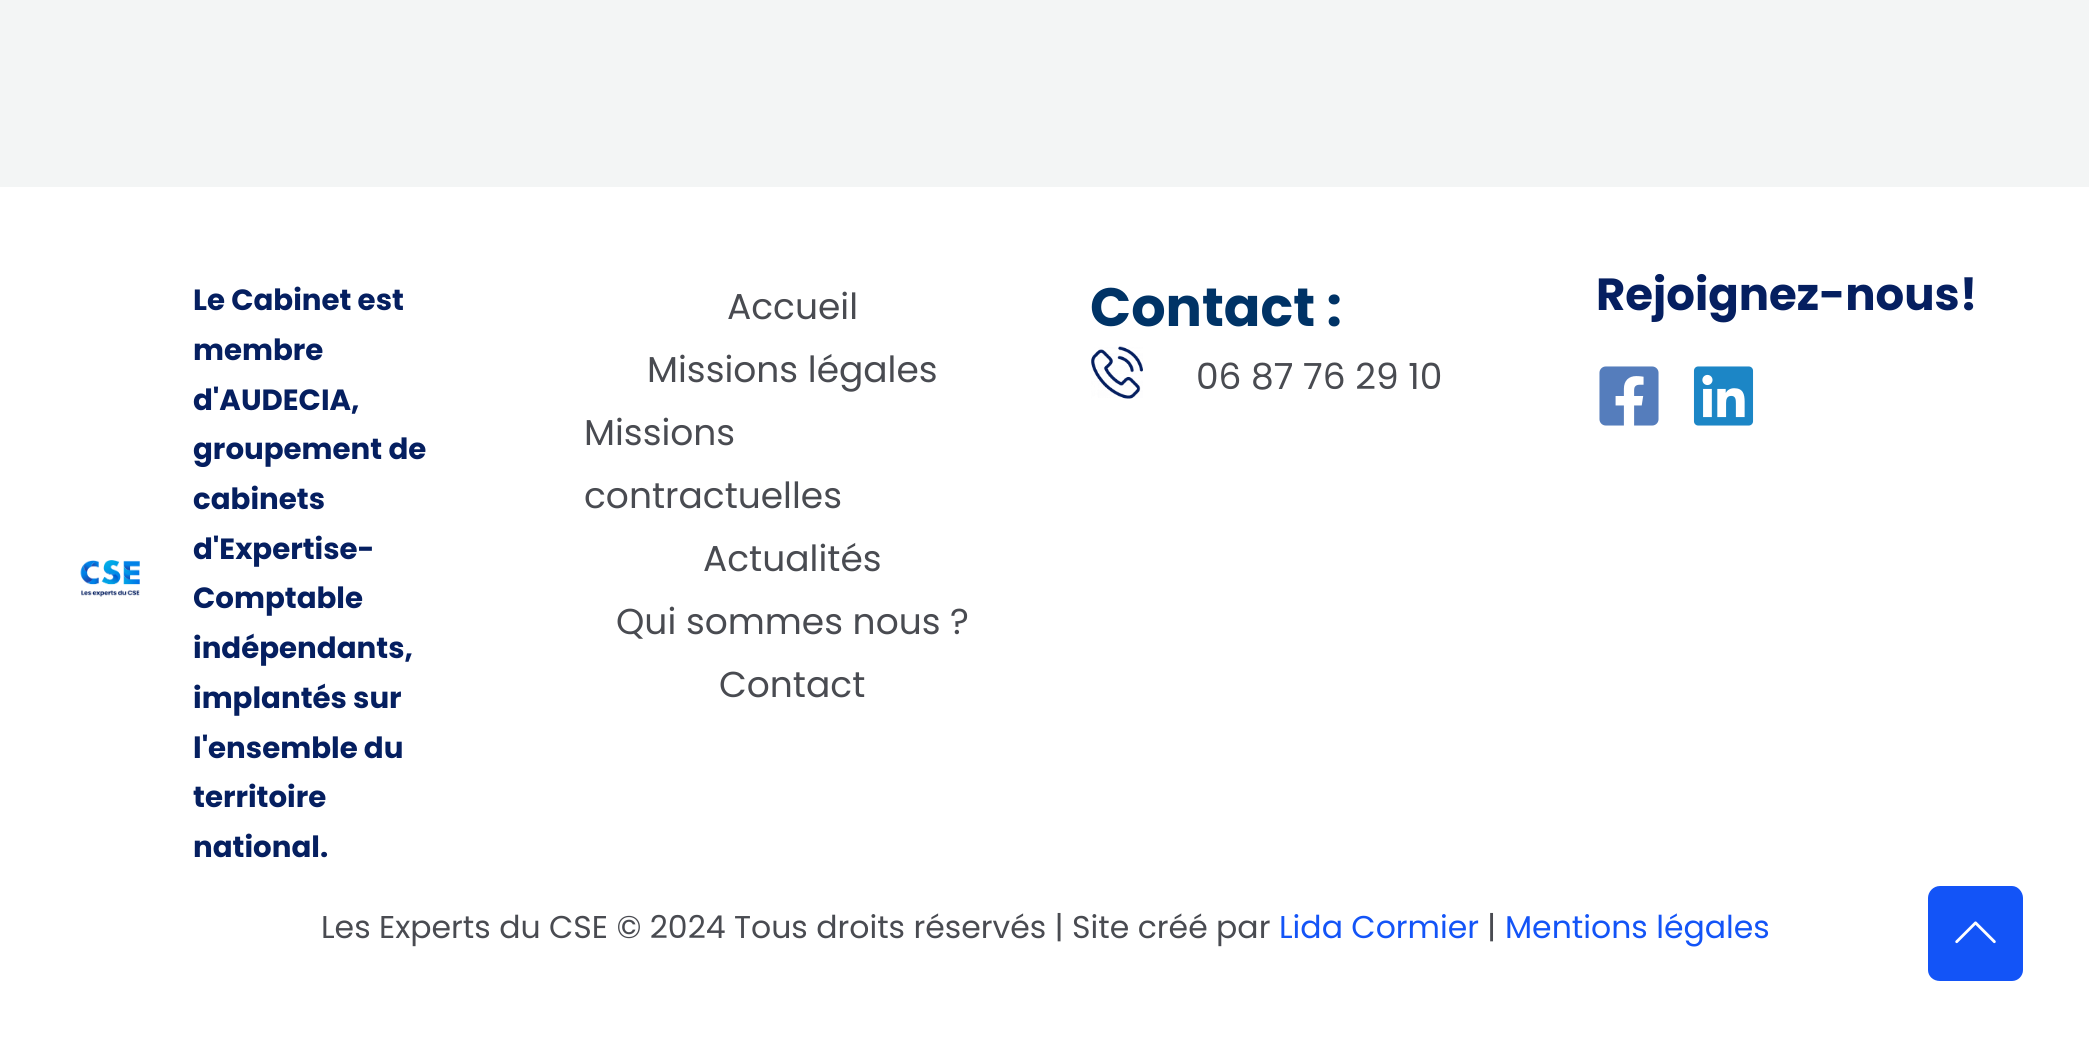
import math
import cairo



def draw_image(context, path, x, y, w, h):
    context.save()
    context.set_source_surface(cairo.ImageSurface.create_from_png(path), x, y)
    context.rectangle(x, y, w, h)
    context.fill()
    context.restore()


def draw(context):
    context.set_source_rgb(243 / 255, 245 / 255, 245 / 255)
    context.paint()
    context.set_source_rgb(1, 1, 1)
    context.rectangle(0, 187, 2089, 861)
    context.fill()
    draw_image(context, "images/1.png", 80, 560, 60, 37)
    draw_image(context, "images/2.png", 1091, 346, 52, 53)
    draw_image(context, "images/3.png", 1599, 366, 60, 60)
    draw_image(context, "images/4.png", 1693, 366, 61, 60)
    context.set_source_rgb(19 / 255, 84 / 255, 247 / 255)
    context.new_path()
    context.move_to(2012, 981)
    context.line_to(1940, 981)
    context.curve_to(1933, 981, 1928, 976, 1928, 970)
    context.line_to(1928, 898)
    context.curve_to(1928, 892, 1933, 886, 1940, 886)
    context.line_to(2012, 886)
    context.curve_to(2018, 886, 2023, 892, 2023, 898)
    context.line_to(2023, 970)
    context.curve_to(2023, 976, 2018, 981, 2012, 981)
    context.close_path()
    context.fill()
    draw_image(context, "images/5.png", 1955, 921, 41, 23)
    context.select_font_face("Poppins", cairo.FontSlant.NORMAL, cairo.FontWeight.BOLD)
    context.set_font_size(29.25)
    context.set_source_rgb(5 / 255, 31 / 255, 96 / 255)
    context.move_to(193, 310)
    context.show_text("Le Cabinet est")
    context.move_to(193, 360)
    context.show_text("membre")
    context.move_to(193, 410)
    context.show_text("d'AUDECIA,")
    context.move_to(193, 459)
    context.show_text("groupement de")
    context.move_to(193, 509)
    context.show_text("cabinets")
    context.move_to(193, 559)
    context.show_text("d'Expertise-")
    context.move_to(193, 608)
    context.show_text("Comptable")
    context.move_to(193, 658)
    context.show_text("indépendants,")
    context.move_to(193, 708)
    context.show_text("implantés sur")
    context.move_to(193, 758)
    context.show_text("l'ensemble du")
    context.move_to(193, 807)
    context.show_text("territoire")
    context.move_to(193, 857)
    context.show_text("national.")
    context.select_font_face("Poppins")
    context.set_font_size(36)
    context.set_source_rgb(73 / 255, 75 / 255, 81 / 255)
    context.move_to(727, 319)
    context.show_text("Accueil")
    context.move_to(647, 382)
    context.show_text("Missions légales")
    context.move_to(584, 445)
    context.show_text("Missions")
    context.move_to(584, 508)
    context.show_text("contractuelles")
    context.move_to(703, 571)
    context.show_text("Actualités")
    context.move_to(616, 634)
    context.show_text("Qui sommes nous ?")
    context.move_to(719, 697)
    context.show_text("Contact")
    context.select_font_face("Poppins", cairo.FontSlant.NORMAL, cairo.FontWeight.BOLD)
    context.set_font_size(54)
    context.set_source_rgb(0, 51 / 255, 102 / 255)
    context.move_to(1090, 326)
    context.show_text("Contact :")
    context.select_font_face("Poppins")
    context.set_font_size(36)
    context.set_source_rgb(73 / 255, 75 / 255, 81 / 255)
    context.move_to(1196, 389)
    context.show_text("06 87 76 29 10")
    context.select_font_face("Poppins", cairo.FontSlant.NORMAL, cairo.FontWeight.BOLD)
    context.set_font_size(45)
    context.set_source_rgb(5 / 255, 31 / 255, 96 / 255)
    context.move_to(1596, 310)
    context.show_text("Rejoignez-nous!")
    context.select_font_face("Poppins")
    context.set_font_size(31.5)
    context.set_source_rgb(73 / 255, 75 / 255, 81 / 255)
    context.move_to(321, 938)
    context.show_text("Les Experts du CSE © 2024 Tous droits réservés | Site créé par")
    context.set_source_rgb(19 / 255, 84 / 255, 247 / 255)
    context.move_to(1279, 938)
    context.show_text("Lida Cormier")
    context.set_source_rgb(73 / 255, 75 / 255, 81 / 255)
    context.move_to(1487, 938)
    context.show_text("|")
    context.set_source_rgb(19 / 255, 84 / 255, 247 / 255)
    context.move_to(1505, 938)
    context.show_text("Mentions légales")


surface = cairo.ImageSurface(cairo.Format.RGB24, 2089, 1048)
context = cairo.Context(surface)
options = cairo.FontOptions()
options.set_hint_metrics(cairo.HintMetrics.OFF)
options.set_hint_style(cairo.HintStyle.NONE)
context.set_font_options(options)
context.set_miter_limit(4)
draw(context)
surface.write_to_png("out.png")
